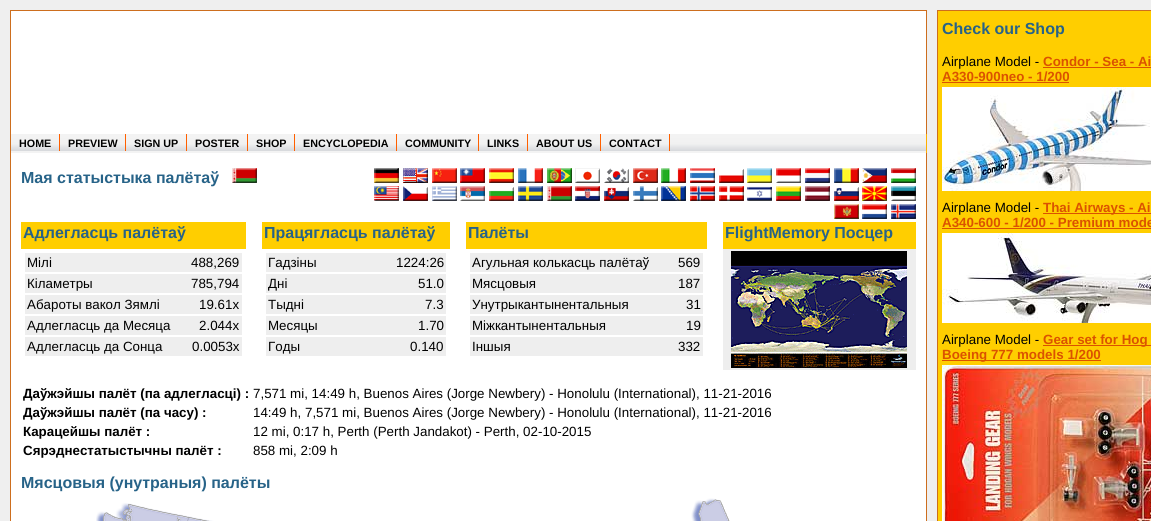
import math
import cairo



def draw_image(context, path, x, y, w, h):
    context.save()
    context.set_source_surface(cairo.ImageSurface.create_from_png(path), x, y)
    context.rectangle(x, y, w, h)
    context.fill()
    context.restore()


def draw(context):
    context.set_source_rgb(239 / 255, 239 / 255, 239 / 255)
    context.paint()
    context.set_source_rgb(1, 1, 1)
    context.rectangle(11, 11, 915, 510)
    context.fill()
    context.set_source_rgb(205 / 255, 110 / 255, 30 / 255)
    context.rectangle(10, 10, 917, 1)
    context.fill()
    context.rectangle(926, 10, 1, 511)
    context.fill()
    context.rectangle(10, 10, 1, 511)
    context.fill()
    draw_image(context, "images/1.png", 11, 151, 915, 2)
    context.set_source_rgb(1, 174 / 255, 0)
    context.rectangle(926, 134, 1, 19)
    context.fill()
    draw_image(context, "images/2.png", 670, 134, 256, 17)
    draw_image(context, "images/3.png", 11, 134, 48, 17)
    context.set_source_rgb(1, 96 / 255, 0)
    context.rectangle(59, 134, 1, 17)
    context.fill()
    draw_image(context, "images/4.png", 60, 134, 65, 17)
    context.rectangle(125, 134, 1, 17)
    context.fill()
    draw_image(context, "images/5.png", 126, 134, 60, 17)
    context.rectangle(186, 134, 1, 17)
    context.fill()
    draw_image(context, "images/5.png", 187, 134, 60, 17)
    context.rectangle(247, 134, 1, 17)
    context.fill()
    draw_image(context, "images/6.png", 248, 134, 46, 17)
    context.rectangle(294, 134, 1, 17)
    context.fill()
    draw_image(context, "images/7.png", 295, 134, 101, 17)
    context.rectangle(396, 134, 1, 17)
    context.fill()
    draw_image(context, "images/8.png", 397, 134, 81, 17)
    context.rectangle(478, 134, 1, 17)
    context.fill()
    draw_image(context, "images/3.png", 479, 134, 48, 17)
    context.rectangle(527, 134, 1, 17)
    context.fill()
    draw_image(context, "images/9.png", 528, 134, 72, 17)
    context.rectangle(600, 134, 1, 17)
    context.fill()
    draw_image(context, "images/10.png", 601, 134, 68, 17)
    context.rectangle(669, 134, 1, 17)
    context.fill()
    draw_image(context, "images/11.png", 232, 168, 25, 15)
    draw_image(context, "images/12.png", 374, 168, 25, 15)
    draw_image(context, "images/13.png", 403, 168, 25, 15)
    draw_image(context, "images/14.png", 432, 168, 25, 15)
    draw_image(context, "images/15.png", 460, 168, 25, 15)
    draw_image(context, "images/16.png", 489, 168, 25, 15)
    draw_image(context, "images/17.png", 518, 168, 25, 15)
    draw_image(context, "images/18.png", 547, 168, 25, 15)
    draw_image(context, "images/19.png", 575, 168, 25, 15)
    draw_image(context, "images/20.png", 604, 168, 25, 15)
    draw_image(context, "images/21.png", 633, 168, 25, 15)
    draw_image(context, "images/22.png", 661, 168, 25, 15)
    draw_image(context, "images/23.png", 690, 168, 25, 15)
    draw_image(context, "images/24.png", 719, 169, 25, 14)
    draw_image(context, "images/25.png", 747, 168, 25, 15)
    draw_image(context, "images/26.png", 776, 168, 25, 15)
    draw_image(context, "images/27.png", 805, 168, 25, 15)
    draw_image(context, "images/28.png", 834, 168, 25, 15)
    draw_image(context, "images/29.png", 862, 168, 25, 15)
    draw_image(context, "images/30.png", 891, 168, 25, 15)
    draw_image(context, "images/31.png", 374, 186, 25, 15)
    draw_image(context, "images/32.png", 403, 186, 25, 15)
    draw_image(context, "images/33.png", 432, 186, 25, 15)
    draw_image(context, "images/34.png", 460, 186, 25, 15)
    draw_image(context, "images/35.png", 489, 187, 25, 14)
    draw_image(context, "images/36.png", 518, 186, 25, 15)
    draw_image(context, "images/11.png", 547, 186, 25, 15)
    draw_image(context, "images/37.png", 575, 186, 25, 15)
    draw_image(context, "images/38.png", 604, 187, 25, 14)
    draw_image(context, "images/39.png", 633, 186, 25, 15)
    draw_image(context, "images/40.png", 661, 186, 25, 15)
    draw_image(context, "images/41.png", 690, 186, 25, 15)
    draw_image(context, "images/42.png", 719, 186, 25, 15)
    draw_image(context, "images/43.png", 747, 186, 25, 15)
    draw_image(context, "images/44.png", 776, 186, 25, 15)
    draw_image(context, "images/45.png", 805, 186, 25, 15)
    draw_image(context, "images/46.png", 834, 187, 25, 14)
    draw_image(context, "images/47.png", 862, 186, 25, 15)
    draw_image(context, "images/48.png", 891, 186, 25, 15)
    draw_image(context, "images/49.png", 834, 204, 25, 15)
    draw_image(context, "images/50.png", 862, 204, 25, 15)
    draw_image(context, "images/51.png", 891, 204, 25, 15)
    context.set_source_rgb(1, 206 / 255, 0)
    context.rectangle(21, 222, 225, 27)
    context.fill()
    context.rectangle(262, 222, 188, 27)
    context.fill()
    context.rectangle(466, 222, 241, 27)
    context.fill()
    context.rectangle(723, 222, 193, 27)
    context.fill()
    context.set_source_rgb(238 / 255, 238 / 255, 238 / 255)
    context.rectangle(25, 253, 217, 19)
    context.fill()
    context.rectangle(25, 274, 217, 19)
    context.fill()
    context.rectangle(25, 295, 217, 19)
    context.fill()
    context.rectangle(25, 316, 217, 19)
    context.fill()
    context.rectangle(25, 337, 217, 19)
    context.fill()
    context.rectangle(266, 253, 180, 19)
    context.fill()
    context.rectangle(266, 274, 180, 19)
    context.fill()
    context.rectangle(266, 295, 180, 19)
    context.fill()
    context.rectangle(266, 316, 180, 19)
    context.fill()
    context.rectangle(266, 337, 180, 19)
    context.fill()
    context.rectangle(470, 253, 233, 19)
    context.fill()
    context.rectangle(470, 274, 233, 19)
    context.fill()
    context.rectangle(470, 295, 233, 19)
    context.fill()
    context.rectangle(470, 316, 233, 19)
    context.fill()
    context.rectangle(470, 337, 233, 19)
    context.fill()
    context.rectangle(723, 249, 193, 121)
    context.fill()
    draw_image(context, "images/52.png", 731, 251, 176, 117)
    draw_image(context, "images/53.png", 96, 498, 634, 23)
    context.set_source_rgb(1, 206 / 255, 0)
    context.rectangle(937.5, 10.5, 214, 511)
    context.fill_preserve()
    context.set_source_rgb(205 / 255, 110 / 255, 30 / 255)
    context.set_line_width(1)
    context.stroke()
    context.set_source_rgb(219 / 255, 82 / 255, 0)
    context.rectangle(1043, 67, 108, 1)
    context.fill()
    context.rectangle(942, 82, 127, 1)
    context.fill()
    draw_image(context, "images/54.png", 942, 87, 209, 104)
    context.rectangle(1043, 213, 108, 1)
    context.fill()
    context.rectangle(942, 228, 209, 1)
    context.fill()
    draw_image(context, "images/55.png", 942, 233, 209, 90)
    context.rectangle(1043, 345, 108, 1)
    context.fill()
    context.rectangle(942, 360, 159, 1)
    context.fill()
    draw_image(context, "images/56.png", 942, 365, 209, 156)
    context.select_font_face("Liberation Sans", cairo.FontSlant.NORMAL, cairo.FontWeight.BOLD)
    context.set_font_size(10.75)
    context.set_source_rgb(0, 0, 0)
    context.move_to(19, 147)
    context.show_text("HOME")
    context.move_to(68, 147)
    context.show_text("PREVIEW")
    context.move_to(134, 147)
    context.show_text("SIGN UP")
    context.move_to(195, 147)
    context.show_text("POSTER")
    context.move_to(256, 147)
    context.show_text("SHOP")
    context.move_to(303, 147)
    context.show_text("ENCYCLOPEDIA")
    context.move_to(405, 147)
    context.show_text("COMMUNITY")
    context.move_to(487, 147)
    context.show_text("LINKS")
    context.move_to(536, 147)
    context.show_text("ABOUT US")
    context.move_to(609, 147)
    context.show_text("CONTACT")
    context.set_font_size(16)
    context.set_source_rgb(39 / 255, 99 / 255, 136 / 255)
    context.move_to(21, 183)
    context.show_text("Мая статыстыка палётаў")
    context.move_to(23, 238)
    context.show_text("Адлегласць палётаў")
    context.move_to(264, 238)
    context.show_text("Працягласць палётаў")
    context.move_to(468, 238)
    context.show_text("Палёты")
    context.move_to(725, 238)
    context.show_text("FlightMemory Посцер")
    context.select_font_face("Liberation Sans")
    context.set_font_size(13.35)
    context.set_source_rgb(0, 0, 0)
    context.move_to(27, 267)
    context.show_text("Мілі")
    context.move_to(191, 267)
    context.show_text("488,269")
    context.move_to(27, 288)
    context.show_text("Кіламетры")
    context.move_to(191, 288)
    context.show_text("785,794")
    context.move_to(27, 309)
    context.show_text("Абароты вакол Зямлі")
    context.move_to(199, 309)
    context.show_text("19.61x")
    context.move_to(27, 330)
    context.show_text("Адлегласць да Месяца")
    context.move_to(199, 330)
    context.show_text("2.044x")
    context.move_to(27, 351)
    context.show_text("Адлегласць да Сонца")
    context.move_to(192, 351)
    context.show_text("0.0053x")
    context.move_to(268, 267)
    context.show_text("Гадзіны")
    context.move_to(396, 267)
    context.show_text("1224:26")
    context.move_to(268, 288)
    context.show_text("Дні")
    context.move_to(418, 288)
    context.show_text("51.0")
    context.move_to(268, 309)
    context.show_text("Тыдні")
    context.move_to(425, 309)
    context.show_text("7.3")
    context.move_to(268, 330)
    context.show_text("Месяцы")
    context.move_to(418, 330)
    context.show_text("1.70")
    context.move_to(268, 351)
    context.show_text("Годы")
    context.move_to(410, 351)
    context.show_text("0.140")
    context.move_to(472, 267)
    context.show_text("Агульная колькасць палётаў")
    context.move_to(678, 267)
    context.show_text("569")
    context.move_to(472, 288)
    context.show_text("Мясцовыя")
    context.move_to(678, 288)
    context.show_text("187")
    context.move_to(472, 309)
    context.show_text("Унутрыкантынентальныя")
    context.move_to(686, 309)
    context.show_text("31")
    context.move_to(472, 330)
    context.show_text("Міжкантынентальныя")
    context.move_to(686, 330)
    context.show_text("19")
    context.move_to(472, 351)
    context.show_text("Іншыя")
    context.move_to(678, 351)
    context.show_text("332")
    context.select_font_face("Liberation Sans", cairo.FontSlant.NORMAL, cairo.FontWeight.BOLD)
    context.move_to(23, 398)
    context.show_text("Даўжэйшы палёт (па адлегласці) :")
    context.select_font_face("Liberation Sans")
    context.move_to(253, 398)
    context.show_text("7,571 mi, 14:49 h, Buenos Aires (Jorge Newbery) - Honolulu (International), 11-21-2016")
    context.select_font_face("Liberation Sans", cairo.FontSlant.NORMAL, cairo.FontWeight.BOLD)
    context.move_to(23, 417)
    context.show_text("Даўжэйшы палёт (па часу) :")
    context.select_font_face("Liberation Sans")
    context.move_to(253, 417)
    context.show_text("14:49 h, 7,571 mi, Buenos Aires (Jorge Newbery) - Honolulu (International), 11-21-2016")
    context.select_font_face("Liberation Sans", cairo.FontSlant.NORMAL, cairo.FontWeight.BOLD)
    context.move_to(23, 436)
    context.show_text("Карацейшы палёт :")
    context.select_font_face("Liberation Sans")
    context.move_to(253, 436)
    context.show_text("12 mi, 0:17 h, Perth (Perth Jandakot) - Perth, 02-10-2015")
    context.select_font_face("Liberation Sans", cairo.FontSlant.NORMAL, cairo.FontWeight.BOLD)
    context.move_to(23, 455)
    context.show_text("Сярэднестатыстычны палёт :")
    context.select_font_face("Liberation Sans")
    context.move_to(253, 455)
    context.show_text("858 mi, 2:09 h")
    context.select_font_face("Liberation Sans", cairo.FontSlant.NORMAL, cairo.FontWeight.BOLD)
    context.set_font_size(16)
    context.set_source_rgb(39 / 255, 99 / 255, 136 / 255)
    context.move_to(21, 488)
    context.show_text("Мясцовыя (унутраныя) палёты")
    context.move_to(942, 34)
    context.show_text("Check our Shop")
    context.select_font_face("Liberation Sans")
    context.set_font_size(13.35)
    context.set_source_rgb(0, 0, 0)
    context.move_to(942, 66)
    context.show_text("Airplane Model -")
    context.select_font_face("Liberation Sans", cairo.FontSlant.NORMAL, cairo.FontWeight.BOLD)
    context.set_source_rgb(219 / 255, 82 / 255, 0)
    context.move_to(1043, 66)
    context.show_text("Condor - Sea - Ai")
    context.move_to(942, 81)
    context.show_text("A330-900neo - 1/200")
    context.select_font_face("Liberation Sans")
    context.set_source_rgb(0, 0, 0)
    context.move_to(942, 212)
    context.show_text("Airplane Model -")
    context.select_font_face("Liberation Sans", cairo.FontSlant.NORMAL, cairo.FontWeight.BOLD)
    context.set_source_rgb(219 / 255, 82 / 255, 0)
    context.move_to(1043, 212)
    context.show_text("Thai Airways - Ai")
    context.move_to(942, 227)
    context.show_text("A340-600 - 1/200 - Premium mode")
    context.select_font_face("Liberation Sans")
    context.set_source_rgb(0, 0, 0)
    context.move_to(942, 344)
    context.show_text("Airplane Model -")
    context.select_font_face("Liberation Sans", cairo.FontSlant.NORMAL, cairo.FontWeight.BOLD)
    context.set_source_rgb(219 / 255, 82 / 255, 0)
    context.move_to(1043, 344)
    context.show_text("Gear set for Hog")
    context.move_to(942, 359)
    context.show_text("Boeing 777 models 1/200")


surface = cairo.ImageSurface(cairo.Format.RGB24, 1151, 521)
context = cairo.Context(surface)
options = cairo.FontOptions()
options.set_hint_metrics(cairo.HintMetrics.OFF)
options.set_hint_style(cairo.HintStyle.NONE)
context.set_font_options(options)
context.set_miter_limit(4)
draw(context)
surface.write_to_png("out.png")
